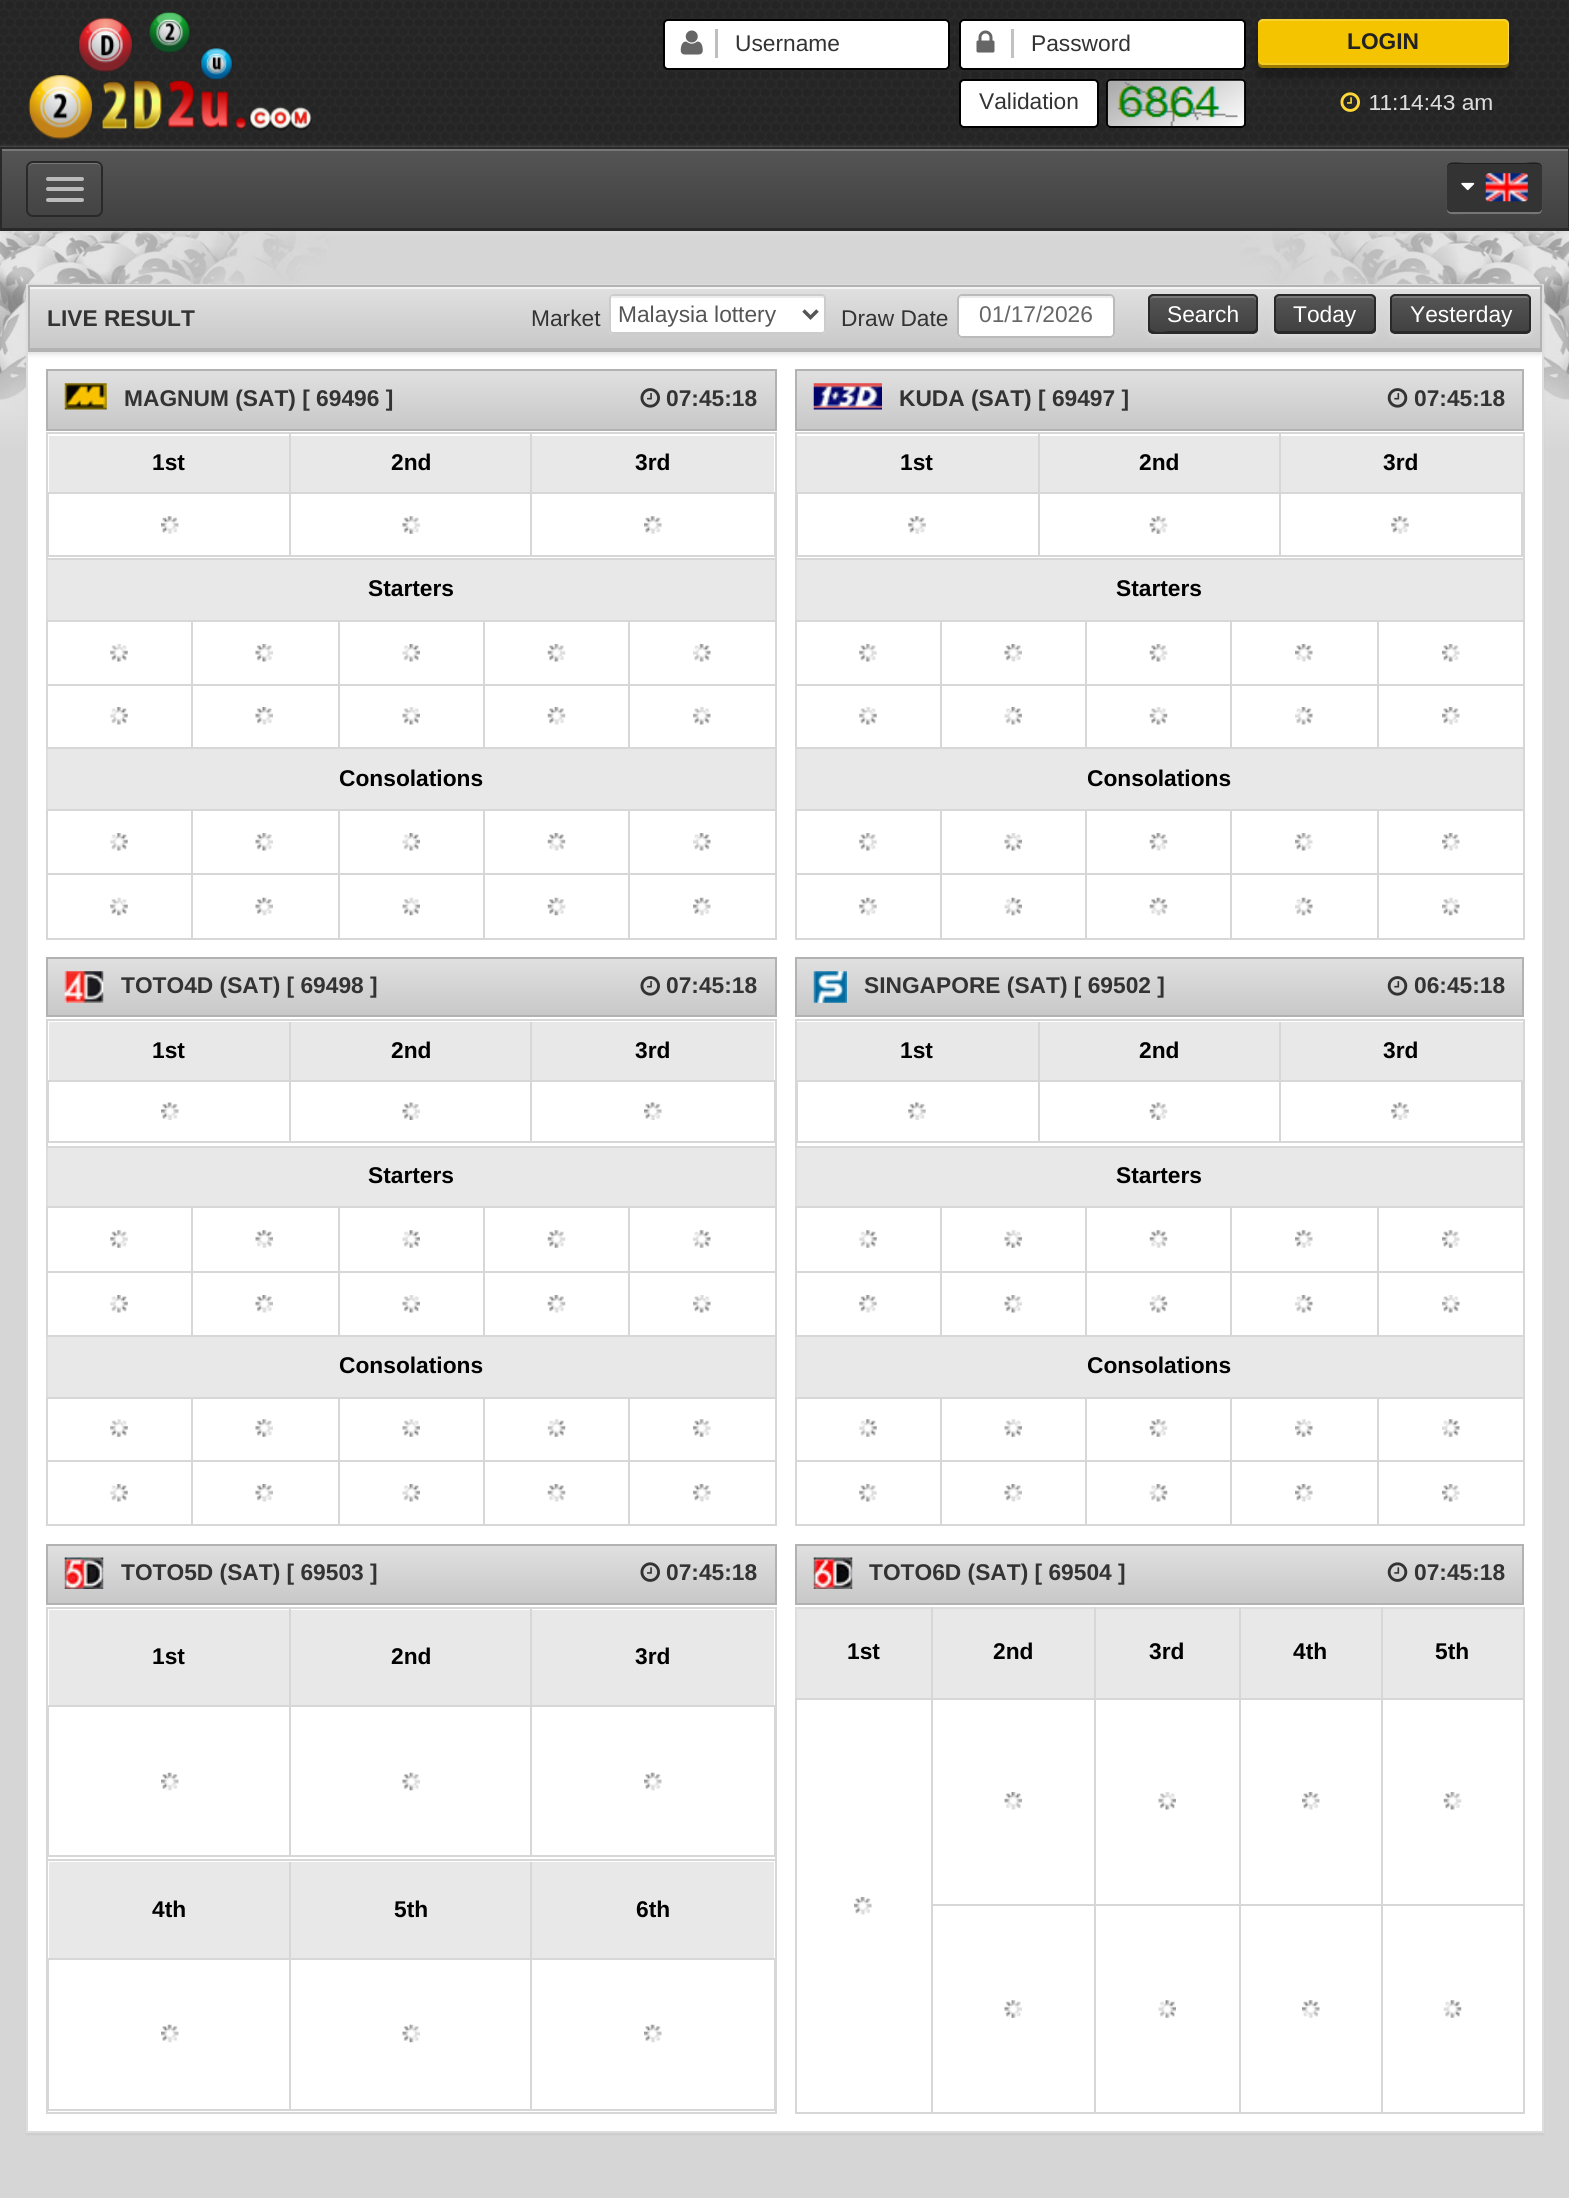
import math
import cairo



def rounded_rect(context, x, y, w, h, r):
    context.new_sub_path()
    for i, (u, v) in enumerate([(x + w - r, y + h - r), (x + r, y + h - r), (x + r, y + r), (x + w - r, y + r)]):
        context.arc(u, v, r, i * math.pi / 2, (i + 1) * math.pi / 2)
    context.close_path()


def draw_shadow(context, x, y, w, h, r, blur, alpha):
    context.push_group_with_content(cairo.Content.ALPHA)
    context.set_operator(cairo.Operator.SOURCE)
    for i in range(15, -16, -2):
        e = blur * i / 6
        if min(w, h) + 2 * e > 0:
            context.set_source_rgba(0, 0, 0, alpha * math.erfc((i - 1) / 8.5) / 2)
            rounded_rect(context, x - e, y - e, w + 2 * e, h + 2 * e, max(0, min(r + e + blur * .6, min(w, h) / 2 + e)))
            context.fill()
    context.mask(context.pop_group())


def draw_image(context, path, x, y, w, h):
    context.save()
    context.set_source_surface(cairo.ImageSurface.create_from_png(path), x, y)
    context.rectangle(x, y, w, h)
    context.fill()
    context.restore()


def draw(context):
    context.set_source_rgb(214 / 255, 214 / 255, 214 / 255)
    context.paint()
    draw_image(context, "images/1.png", 0, 0, 1569, 147)
    draw_image(context, "images/2.png", 28, 11, 284, 129)
    context.set_source_rgb(1, 1, 1)
    rounded_rect(context, 664, 20, 285, 49, 4)
    context.fill_preserve()
    context.set_source_rgb(0, 0, 0)
    context.stroke()
    context.set_source_rgb(190 / 255, 190 / 255, 190 / 255)
    context.rectangle(715, 29, 3, 29)
    context.fill()
    draw_image(context, "images/3.png", 680, 30, 23, 25)
    context.set_source_rgb(1, 1, 1)
    rounded_rect(context, 960, 20, 285, 49, 4)
    context.fill_preserve()
    context.set_source_rgb(0, 0, 0)
    context.stroke()
    context.set_source_rgb(193 / 255, 193 / 255, 193 / 255)
    context.rectangle(1011, 29, 3, 29)
    context.fill()
    draw_image(context, "images/4.png", 976, 30, 19, 23)
    context.set_source_rgb(1, 1, 1)
    rounded_rect(context, 960, 80, 138, 47, 4)
    context.fill_preserve()
    context.set_source_rgb(0, 0, 0)
    context.stroke()
    rounded_rect(context, 1107, 80, 138, 47, 4)
    context.stroke()
    draw_image(context, "images/5.png", 1107, 80, 138, 46)
    context.set_source_rgb(0, 0, 0)
    draw_shadow(context, 1257, 28, 253, 49, 7, 5, 0.3)
    context.set_source_rgb(153 / 255, 122 / 255, 0)
    context.new_path()
    context.move_to(1258, 26)
    context.line_to(1258, 63)
    context.curve_to(1258, 66, 1260, 68, 1263, 68)
    context.line_to(1504, 68)
    context.curve_to(1507, 68, 1509, 66, 1509, 63)
    context.line_to(1509, 28)
    context.line_to(1508, 26)
    context.line_to(1508, 60)
    context.curve_to(1508, 62, 1506, 65, 1503, 65)
    context.line_to(1264, 65)
    context.curve_to(1261, 65, 1258, 62, 1258, 60)
    context.close_path()
    context.fill()
    context.set_source_rgb(245 / 255, 196 / 255, 0)
    rounded_rect(context, 1258, 19, 251, 46, 5)
    context.fill()
    context.set_source_rgba(1, 1, 1, 0.15)
    context.new_path()
    context.move_to(1258, 58)
    context.line_to(1258, 60)
    context.curve_to(1258, 63, 1260, 65, 1263, 65)
    context.line_to(1504, 65)
    context.curve_to(1507, 65, 1509, 63, 1509, 60)
    context.line_to(1509, 24)
    context.curve_to(1509, 23, 1508, 21, 1507, 20)
    context.line_to(1508, 23)
    context.line_to(1508, 58)
    context.curve_to(1508, 61, 1506, 63, 1503, 63)
    context.line_to(1264, 63)
    context.curve_to(1261, 63, 1258, 61, 1258, 58)
    context.close_path()
    context.fill()
    context.set_source_rgba(1, 1, 1, 0.2)
    context.new_path()
    context.move_to(1264, 21)
    context.line_to(1503, 21)
    context.curve_to(1506, 21, 1508, 23, 1508, 26)
    context.line_to(1508, 61)
    context.line_to(1507, 64)
    context.curve_to(1508, 63, 1509, 61, 1509, 60)
    context.line_to(1509, 24)
    context.curve_to(1509, 21, 1507, 19, 1504, 19)
    context.line_to(1263, 19)
    context.curve_to(1260, 19, 1258, 21, 1258, 24)
    context.line_to(1258, 26)
    context.curve_to(1258, 23, 1261, 21, 1264, 21)
    context.close_path()
    context.fill()
    draw_image(context, "images/6.png", 1340, 92, 20, 20)
    draw_image(context, "images/7.png", 1370, 95, 122, 15)
    draw_image(context, "images/10.png", 0, 231, 1569, 218)
    context.set_source_rgb(221 / 255, 221 / 255, 221 / 255)
    draw_shadow(context, 0, 149, 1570, 84, 0, 2.5, 1)
    gradient = cairo.LinearGradient(785, 149, 785, 229)
    gradient.add_color_stop_rgba(0, 85 / 255, 85 / 255, 85 / 255, 1)
    gradient.add_color_stop_rgba(1, 64 / 255, 64 / 255, 64 / 255, 1)
    context.set_source(gradient)
    context.rectangle(2, 151, 1566, 77)
    context.fill()
    context.set_source_rgb(41 / 255, 41 / 255, 41 / 255)
    context.rectangle(2, 228, 1566, 1)
    context.fill()
    context.set_source_rgb(120 / 255, 120 / 255, 120 / 255)
    context.rectangle(2, 149, 1566, 2)
    context.fill()
    context.rectangle(1, 148, 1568, 82)
    context.set_source_rgb(41 / 255, 41 / 255, 41 / 255)
    context.stroke()
    context.set_source_rgb(120 / 255, 120 / 255, 120 / 255)
    context.new_path()
    context.move_to(33, 164)
    context.line_to(96, 164)
    context.curve_to(99, 164, 102, 167, 102, 170)
    context.curve_to(102, 160, 94, 163, 86, 163)
    context.line_to(44, 163)
    context.curve_to(36, 163, 28, 160, 28, 170)
    context.curve_to(28, 167, 30, 164, 33, 164)
    context.close_path()
    context.fill()
    rounded_rect(context, 27, 162, 75, 54, 6)
    context.set_source_rgb(41 / 255, 41 / 255, 41 / 255)
    context.stroke()
    context.set_source_rgb(187 / 255, 187 / 255, 187 / 255)
    rounded_rect(context, 46, 177, 38, 4, 2)
    context.fill()
    rounded_rect(context, 46, 187, 38, 4, 2)
    context.fill()
    rounded_rect(context, 46, 198, 38, 4, 2)
    context.fill()
    context.set_source_rgb(118 / 255, 118 / 255, 118 / 255)
    context.new_path()
    context.move_to(1447, 168)
    context.line_to(1447, 196)
    context.curve_to(1447, 217, 1444, 214, 1466, 214)
    context.line_to(1524, 214)
    context.curve_to(1545, 214, 1542, 217, 1542, 196)
    context.line_to(1542, 168)
    context.line_to(1542, 208)
    context.curve_to(1542, 210, 1540, 212, 1538, 212)
    context.line_to(1451, 212)
    context.curve_to(1449, 212, 1447, 210, 1447, 208)
    context.close_path()
    context.fill()
    context.set_source_rgb(51 / 255, 51 / 255, 51 / 255)
    rounded_rect(context, 1447, 163, 95, 49, 4)
    context.fill()
    context.set_source_rgba(0, 0, 0, 0.4)
    context.new_path()
    context.move_to(1451, 164)
    context.line_to(1538, 164)
    context.curve_to(1540, 164, 1542, 166, 1542, 168)
    context.curve_to(1542, 159, 1528, 163, 1524, 163)
    context.line_to(1466, 163)
    context.curve_to(1461, 163, 1447, 159, 1447, 168)
    context.curve_to(1447, 166, 1449, 164, 1451, 164)
    context.close_path()
    context.fill()
    draw_image(context, "images/8.png", 1461, 182, 14, 9)
    draw_image(context, "images/9.png", 1485, 173, 43, 29)
    context.set_source_rgb(0, 0, 0)
    draw_shadow(context, 26, 285, 1518, 1850, 0, 1, 0.05)
    context.set_source_rgb(1, 1, 1)
    context.rectangle(28, 352, 1514, 1779)
    context.fill()
    context.rectangle(27, 285, 1516, 1847)
    context.set_source_rgb(221 / 255, 221 / 255, 221 / 255)
    context.stroke()
    context.set_source_rgb(221 / 255, 221 / 255, 221 / 255)
    draw_shadow(context, 28, 287, 1514, 67, 0, 2.5, 1)
    gradient = cairo.LinearGradient(785, 287, 785, 350)
    gradient.add_color_stop_rgba(0, 224 / 255, 224 / 255, 224 / 255, 1)
    gradient.add_color_stop_rgba(1, 200 / 255, 200 / 255, 200 / 255, 1)
    context.set_source(gradient)
    context.rectangle(30, 289, 1510, 59)
    context.fill()
    context.set_source_rgb(179 / 255, 179 / 255, 179 / 255)
    context.rectangle(30, 348, 1510, 2)
    context.fill()
    context.set_source_rgb(244 / 255, 244 / 255, 244 / 255)
    context.rectangle(30, 287, 1510, 2)
    context.fill()
    context.rectangle(29, 286, 1512, 65)
    context.set_source_rgb(178 / 255, 178 / 255, 178 / 255)
    context.stroke()
    context.set_source_rgb(1, 1, 1)
    rounded_rect(context, 609, 294, 217, 40, 4)
    context.fill()
    context.set_source_rgb(236 / 255, 236 / 255, 236 / 255)
    context.new_path()
    context.move_to(612, 298)
    context.line_to(822, 298)
    context.curve_to(823, 298, 824, 298, 824, 299)
    context.curve_to(824, 298, 824, 296, 822, 296)
    context.line_to(613, 296)
    context.line_to(612, 297)
    context.line_to(611, 299)
    context.close_path()
    context.fill()
    rounded_rect(context, 610, 295, 215, 38, 3)
    context.set_source_rgb(204 / 255, 204 / 255, 204 / 255)
    context.stroke()
    context.new_path()
    context.move_to(803.5, 310.5)
    context.line_to(810.5, 317.5)
    context.line_to(817.5, 310.5)
    context.set_source_rgb(85 / 255, 85 / 255, 85 / 255)
    context.set_line_width(3.5)
    context.stroke()
    context.set_source_rgb(1, 1, 1)
    rounded_rect(context, 957, 294, 158, 44, 5)
    context.fill()
    context.set_source_rgb(236 / 255, 236 / 255, 236 / 255)
    context.new_path()
    context.move_to(962, 298)
    context.line_to(1110, 298)
    context.curve_to(1111, 298, 1113, 299, 1113, 301)
    context.curve_to(1113, 298, 1112, 296, 1109, 296)
    context.line_to(962, 296)
    context.curve_to(960, 297, 959, 299, 959, 301)
    context.curve_to(959, 299, 961, 298, 962, 298)
    context.close_path()
    context.fill()
    rounded_rect(context, 958, 295, 156, 42, 4)
    context.set_source_rgb(187 / 255, 187 / 255, 187 / 255)
    context.set_line_width(2)
    context.stroke()
    context.set_source_rgb(221 / 255, 221 / 255, 221 / 255)
    draw_shadow(context, 1148, 296, 110, 40, 5, 2.5, 1)
    context.save()
    rounded_rect(context, 1148, 294, 110, 40, 5)
    context.clip()
    gradient = cairo.LinearGradient(1203, 296, 1203, 333)
    gradient.add_color_stop_rgba(0, 85 / 255, 85 / 255, 85 / 255, 1)
    gradient.add_color_stop_rgba(1, 64 / 255, 64 / 255, 64 / 255, 1)
    context.set_source(gradient)
    context.rectangle(1148, 296, 110, 37)
    context.fill()
    context.restore()
    context.set_source_rgb(41 / 255, 41 / 255, 41 / 255)
    context.new_path()
    context.move_to(1150, 327)
    context.line_to(1150, 329)
    context.curve_to(1150, 331, 1152, 333, 1154, 333)
    context.line_to(1253, 333)
    context.curve_to(1255, 333, 1257, 331, 1257, 329)
    context.line_to(1257, 300)
    context.curve_to(1257, 299, 1257, 298, 1256, 297)
    context.line_to(1256, 322)
    context.curve_to(1256, 324, 1257, 331, 1253, 331)
    context.line_to(1170, 331)
    context.curve_to(1168, 331, 1150, 335, 1150, 327)
    context.close_path()
    context.fill()
    context.set_source_rgb(120 / 255, 120 / 255, 120 / 255)
    context.new_path()
    context.move_to(1153, 298)
    context.line_to(1253, 298)
    context.curve_to(1257, 298, 1256, 303, 1256, 306)
    context.line_to(1256, 332)
    context.curve_to(1257, 331, 1257, 330, 1257, 329)
    context.line_to(1257, 300)
    context.curve_to(1257, 298, 1255, 296, 1253, 296)
    context.line_to(1154, 296)
    context.curve_to(1152, 296, 1150, 298, 1150, 300)
    context.line_to(1150, 301)
    context.curve_to(1150, 299, 1151, 298, 1153, 298)
    context.close_path()
    context.fill()
    rounded_rect(context, 1149, 295, 108, 38, 4)
    context.set_source_rgb(41 / 255, 41 / 255, 41 / 255)
    context.stroke()
    context.set_source_rgb(221 / 255, 221 / 255, 221 / 255)
    draw_shadow(context, 1274, 296, 102, 40, 5, 2.5, 1)
    context.save()
    rounded_rect(context, 1274, 294, 102, 40, 5)
    context.clip()
    gradient = cairo.LinearGradient(1325, 296, 1325, 333)
    gradient.add_color_stop_rgba(0, 85 / 255, 85 / 255, 85 / 255, 1)
    gradient.add_color_stop_rgba(1, 64 / 255, 64 / 255, 64 / 255, 1)
    context.set_source(gradient)
    context.rectangle(1274, 296, 102, 37)
    context.fill()
    context.restore()
    context.set_source_rgb(41 / 255, 41 / 255, 41 / 255)
    context.new_path()
    context.move_to(1276, 327)
    context.line_to(1276, 329)
    context.curve_to(1276, 331, 1278, 333, 1280, 333)
    context.line_to(1370, 333)
    context.curve_to(1372, 333, 1374, 331, 1374, 329)
    context.line_to(1374, 327)
    context.curve_to(1374, 329, 1372, 331, 1370, 331)
    context.line_to(1279, 331)
    context.curve_to(1277, 331, 1276, 329, 1276, 327)
    context.close_path()
    context.fill()
    context.set_source_rgb(120 / 255, 120 / 255, 120 / 255)
    context.new_path()
    context.move_to(1279, 298)
    context.line_to(1370, 298)
    context.curve_to(1372, 298, 1374, 299, 1374, 301)
    context.curve_to(1374, 292, 1359, 296, 1355, 296)
    context.line_to(1295, 296)
    context.curve_to(1291, 296, 1276, 292, 1276, 301)
    context.curve_to(1276, 299, 1277, 298, 1279, 298)
    context.close_path()
    context.fill()
    rounded_rect(context, 1275, 295, 100, 38, 4)
    context.set_source_rgb(41 / 255, 41 / 255, 41 / 255)
    context.stroke()
    context.set_source_rgb(221 / 255, 221 / 255, 221 / 255)
    draw_shadow(context, 1390, 296, 141, 40, 5, 2.5, 1)
    context.save()
    rounded_rect(context, 1390, 294, 141, 40, 5)
    context.clip()
    gradient = cairo.LinearGradient(1460, 296, 1460, 333)
    gradient.add_color_stop_rgba(0, 85 / 255, 85 / 255, 85 / 255, 1)
    gradient.add_color_stop_rgba(1, 64 / 255, 64 / 255, 64 / 255, 1)
    context.set_source(gradient)
    context.rectangle(1390, 296, 141, 37)
    context.fill()
    context.restore()
    context.set_source_rgb(41 / 255, 41 / 255, 41 / 255)
    context.new_path()
    context.move_to(1391, 327)
    context.line_to(1391, 329)
    context.curve_to(1391, 331, 1393, 333, 1395, 333)
    context.line_to(1526, 333)
    context.curve_to(1528, 333, 1530, 331, 1530, 329)
    context.line_to(1530, 327)
    context.curve_to(1530, 329, 1528, 331, 1526, 331)
    context.line_to(1395, 331)
    context.curve_to(1393, 331, 1391, 329, 1391, 327)
    context.close_path()
    context.fill()
    context.set_source_rgb(120 / 255, 120 / 255, 120 / 255)
    context.new_path()
    context.move_to(1395, 298)
    context.line_to(1526, 298)
    context.curve_to(1528, 298, 1530, 299, 1530, 301)
    context.line_to(1530, 300)
    context.curve_to(1530, 298, 1528, 296, 1526, 296)
    context.line_to(1395, 296)
    context.curve_to(1393, 296, 1391, 298, 1391, 300)
    context.line_to(1391, 301)
    context.curve_to(1391, 299, 1393, 298, 1395, 298)
    context.close_path()
    context.fill()
    rounded_rect(context, 1391, 295, 139, 38, 4)
    context.set_source_rgb(41 / 255, 41 / 255, 41 / 255)
    context.stroke()
    gradient = cairo.LinearGradient(411, 371, 411, 429)
    gradient.add_color_stop_rgba(0, 224 / 255, 224 / 255, 224 / 255, 1)
    gradient.add_color_stop_rgba(1, 200 / 255, 200 / 255, 200 / 255, 1)
    context.set_source(gradient)
    context.rectangle(48, 371, 727, 58)
    context.fill()
    context.rectangle(47, 370, 729, 60)
    context.set_source_rgb(178 / 255, 178 / 255, 178 / 255)
    context.stroke()
    draw_image(context, "images/11.png", 64, 383, 43, 27)
    draw_image(context, "images/12.png", 640, 388, 20, 20)
    context.set_source_rgb(221 / 255, 221 / 255, 221 / 255)
    context.rectangle(46, 560, 2, 249)
    context.fill()
    context.set_source_rgb(215 / 255, 215 / 255, 215 / 255)
    context.rectangle(46, 432, 731, 2)
    context.fill()
    context.rectangle(628, 620, 149, 2)
    context.fill()
    context.rectangle(628, 684, 149, 2)
    context.fill()
    context.rectangle(628, 809, 149, 2)
    context.fill()
    context.rectangle(628, 873, 149, 2)
    context.fill()
    context.rectangle(775, 873, 2, 67)
    context.fill()
    context.rectangle(775, 747, 2, 128)
    context.fill()
    context.rectangle(775, 684, 2, 65)
    context.fill()
    context.rectangle(775, 558, 2, 128)
    context.fill()
    context.rectangle(775, 432, 2, 128)
    context.fill()
    context.rectangle(46, 558, 731, 2)
    context.fill()
    context.rectangle(530, 492, 245, 2)
    context.fill()
    context.rectangle(774, 492, 1, 65)
    context.fill()
    context.rectangle(530, 555, 245, 2)
    context.fill()
    context.rectangle(530, 492, 2, 65)
    context.fill()
    context.rectangle(289, 492, 243, 2)
    context.fill()
    context.rectangle(289, 555, 243, 2)
    context.fill()
    context.rectangle(289, 492, 2, 65)
    context.fill()
    context.rectangle(47, 492, 244, 2)
    context.fill()
    context.rectangle(47, 555, 244, 2)
    context.fill()
    context.rectangle(46, 432, 2, 128)
    context.fill()
    context.set_source_rgb(232 / 255, 232 / 255, 232 / 255)
    context.rectangle(49, 436, 240, 56)
    context.fill()
    context.set_source_rgb(215 / 255, 215 / 255, 215 / 255)
    context.rectangle(289, 434, 2, 60)
    context.fill()
    context.set_source_rgb(232 / 255, 232 / 255, 232 / 255)
    context.rectangle(291, 436, 239, 56)
    context.fill()
    context.set_source_rgb(215 / 255, 215 / 255, 215 / 255)
    context.rectangle(530, 434, 2, 60)
    context.fill()
    context.set_source_rgb(232 / 255, 232 / 255, 232 / 255)
    context.rectangle(532, 436, 242, 56)
    context.fill()
    draw_image(context, "images/13.png", 161, 516, 18, 18)
    context.set_source_rgb(215 / 255, 215 / 255, 215 / 255)
    context.rectangle(48, 492, 1, 65)
    context.fill()
    draw_image(context, "images/14.png", 402, 516, 18, 18)
    draw_image(context, "images/13.png", 644, 516, 18, 18)
    draw_image(context, "images/15.png", 110, 644, 18, 18)
    context.rectangle(628, 747, 149, 2)
    context.fill()
    context.rectangle(628, 684, 2, 65)
    context.fill()
    context.rectangle(483, 684, 147, 2)
    context.fill()
    context.rectangle(628, 620, 2, 66)
    context.fill()
    context.rectangle(483, 620, 147, 2)
    context.fill()
    context.rectangle(483, 747, 147, 2)
    context.fill()
    context.rectangle(483, 684, 2, 65)
    context.fill()
    context.rectangle(338, 684, 147, 2)
    context.fill()
    context.rectangle(483, 620, 2, 66)
    context.fill()
    context.rectangle(338, 620, 147, 2)
    context.fill()
    context.rectangle(338, 747, 147, 2)
    context.fill()
    context.rectangle(338, 684, 2, 65)
    context.fill()
    context.rectangle(191, 684, 149, 2)
    context.fill()
    context.rectangle(338, 620, 2, 66)
    context.fill()
    context.rectangle(191, 620, 149, 2)
    context.fill()
    context.rectangle(191, 747, 149, 2)
    context.fill()
    context.rectangle(191, 684, 2, 65)
    context.fill()
    context.rectangle(46, 684, 147, 2)
    context.fill()
    context.rectangle(191, 620, 2, 66)
    context.fill()
    context.rectangle(46, 620, 147, 2)
    context.fill()
    context.rectangle(46, 747, 147, 2)
    context.fill()
    context.rectangle(46, 684, 2, 65)
    context.fill()
    context.rectangle(46, 620, 2, 66)
    context.fill()
    draw_image(context, "images/16.png", 255, 644, 18, 18)
    draw_image(context, "images/17.png", 402, 644, 18, 18)
    draw_image(context, "images/18.png", 547, 644, 19, 18)
    draw_image(context, "images/19.png", 693, 644, 18, 18)
    context.set_source_rgb(232 / 255, 232 / 255, 232 / 255)
    context.rectangle(48, 560, 727, 60)
    context.fill()
    draw_image(context, "images/20.png", 110, 707, 18, 18)
    draw_image(context, "images/21.png", 255, 707, 18, 18)
    draw_image(context, "images/22.png", 402, 707, 18, 18)
    draw_image(context, "images/23.png", 547, 707, 19, 18)
    draw_image(context, "images/24.png", 693, 707, 18, 18)
    draw_image(context, "images/20.png", 110, 833, 18, 18)
    context.set_source_rgb(215 / 255, 215 / 255, 215 / 255)
    context.rectangle(628, 938, 149, 2)
    context.fill()
    context.rectangle(628, 873, 2, 67)
    context.fill()
    context.rectangle(483, 873, 147, 2)
    context.fill()
    context.rectangle(628, 809, 2, 66)
    context.fill()
    context.rectangle(483, 809, 147, 2)
    context.fill()
    context.rectangle(483, 938, 147, 2)
    context.fill()
    context.rectangle(483, 873, 2, 67)
    context.fill()
    context.rectangle(338, 873, 147, 2)
    context.fill()
    context.rectangle(483, 809, 2, 66)
    context.fill()
    context.rectangle(338, 809, 147, 2)
    context.fill()
    context.rectangle(338, 938, 147, 2)
    context.fill()
    context.rectangle(338, 873, 2, 67)
    context.fill()
    context.rectangle(191, 873, 149, 2)
    context.fill()
    context.rectangle(338, 809, 2, 66)
    context.fill()
    context.rectangle(191, 809, 149, 2)
    context.fill()
    context.rectangle(191, 938, 149, 2)
    context.fill()
    context.rectangle(191, 873, 2, 67)
    context.fill()
    context.rectangle(46, 873, 147, 2)
    context.fill()
    context.rectangle(191, 809, 2, 66)
    context.fill()
    context.rectangle(46, 809, 147, 2)
    context.fill()
    context.rectangle(46, 938, 147, 2)
    context.fill()
    context.rectangle(46, 873, 2, 67)
    context.fill()
    context.rectangle(46, 809, 2, 66)
    context.fill()
    draw_image(context, "images/16.png", 255, 833, 18, 18)
    draw_image(context, "images/17.png", 402, 833, 18, 18)
    draw_image(context, "images/25.png", 547, 833, 19, 18)
    draw_image(context, "images/19.png", 693, 833, 18, 18)
    context.set_source_rgb(232 / 255, 232 / 255, 232 / 255)
    context.rectangle(48, 749, 727, 60)
    context.fill()
    draw_image(context, "images/26.png", 110, 897, 18, 19)
    draw_image(context, "images/27.png", 255, 897, 18, 19)
    draw_image(context, "images/28.png", 402, 897, 18, 19)
    draw_image(context, "images/29.png", 547, 897, 19, 19)
    draw_image(context, "images/30.png", 693, 897, 18, 19)
    gradient = cairo.LinearGradient(1159, 371, 1159, 429)
    gradient.add_color_stop_rgba(0, 224 / 255, 224 / 255, 224 / 255, 1)
    gradient.add_color_stop_rgba(1, 200 / 255, 200 / 255, 200 / 255, 1)
    context.set_source(gradient)
    context.rectangle(797, 371, 725, 58)
    context.fill()
    context.rectangle(796, 370, 727, 60)
    context.set_source_rgb(178 / 255, 178 / 255, 178 / 255)
    context.stroke()
    draw_image(context, "images/31.png", 813, 383, 69, 27)
    draw_image(context, "images/32.png", 1387, 388, 21, 20)
    context.set_source_rgb(221 / 255, 221 / 255, 221 / 255)
    context.rectangle(795, 560, 2, 249)
    context.fill()
    context.set_source_rgb(215 / 255, 215 / 255, 215 / 255)
    context.rectangle(795, 432, 729, 2)
    context.fill()
    context.rectangle(1377, 620, 147, 2)
    context.fill()
    context.rectangle(1377, 684, 147, 2)
    context.fill()
    context.rectangle(1377, 809, 147, 2)
    context.fill()
    context.rectangle(1377, 873, 147, 2)
    context.fill()
    context.rectangle(1523, 873, 2, 67)
    context.fill()
    context.rectangle(1523, 747, 2, 128)
    context.fill()
    context.rectangle(1523, 684, 2, 65)
    context.fill()
    context.rectangle(1523, 558, 2, 128)
    context.fill()
    context.rectangle(1523, 432, 2, 128)
    context.fill()
    context.rectangle(795, 558, 729, 2)
    context.fill()
    context.rectangle(1279, 492, 244, 2)
    context.fill()
    context.rectangle(1521, 492, 2, 65)
    context.fill()
    context.rectangle(1279, 555, 244, 2)
    context.fill()
    context.rectangle(1279, 492, 2, 65)
    context.fill()
    context.rectangle(1038, 492, 243, 2)
    context.fill()
    context.rectangle(1038, 555, 243, 2)
    context.fill()
    context.rectangle(1038, 492, 2, 65)
    context.fill()
    context.rectangle(796, 492, 244, 2)
    context.fill()
    context.rectangle(796, 555, 244, 2)
    context.fill()
    context.rectangle(795, 432, 2, 128)
    context.fill()
    context.set_source_rgb(232 / 255, 232 / 255, 232 / 255)
    context.rectangle(797, 436, 241, 56)
    context.fill()
    context.set_source_rgb(215 / 255, 215 / 255, 215 / 255)
    context.rectangle(1038, 434, 2, 60)
    context.fill()
    context.set_source_rgb(232 / 255, 232 / 255, 232 / 255)
    context.rectangle(1040, 436, 239, 56)
    context.fill()
    context.set_source_rgb(215 / 255, 215 / 255, 215 / 255)
    context.rectangle(1279, 434, 2, 60)
    context.fill()
    context.set_source_rgb(232 / 255, 232 / 255, 232 / 255)
    context.rectangle(1281, 436, 242, 56)
    context.fill()
    draw_image(context, "images/33.png", 908, 516, 18, 18)
    context.set_source_rgb(215 / 255, 215 / 255, 215 / 255)
    context.rectangle(797, 492, 1, 65)
    context.fill()
    draw_image(context, "images/34.png", 1149, 516, 19, 18)
    draw_image(context, "images/35.png", 1391, 516, 18, 18)
    draw_image(context, "images/36.png", 859, 644, 18, 18)
    context.rectangle(1377, 747, 147, 2)
    context.fill()
    context.rectangle(1377, 684, 2, 65)
    context.fill()
    context.rectangle(1230, 684, 149, 2)
    context.fill()
    context.rectangle(1377, 620, 2, 66)
    context.fill()
    context.rectangle(1230, 620, 149, 2)
    context.fill()
    context.rectangle(1230, 747, 149, 2)
    context.fill()
    context.rectangle(1230, 684, 2, 65)
    context.fill()
    context.rectangle(1085, 684, 147, 2)
    context.fill()
    context.rectangle(1230, 620, 2, 66)
    context.fill()
    context.rectangle(1085, 620, 147, 2)
    context.fill()
    context.rectangle(1085, 747, 147, 2)
    context.fill()
    context.rectangle(1085, 684, 2, 65)
    context.fill()
    context.rectangle(940, 684, 147, 2)
    context.fill()
    context.rectangle(1085, 620, 2, 66)
    context.fill()
    context.rectangle(940, 620, 147, 2)
    context.fill()
    context.rectangle(940, 747, 147, 2)
    context.fill()
    context.rectangle(940, 684, 2, 65)
    context.fill()
    context.rectangle(795, 684, 147, 2)
    context.fill()
    context.rectangle(940, 620, 2, 66)
    context.fill()
    context.rectangle(795, 620, 147, 2)
    context.fill()
    context.rectangle(795, 747, 147, 2)
    context.fill()
    context.rectangle(795, 684, 2, 65)
    context.fill()
    context.rectangle(795, 620, 2, 66)
    context.fill()
    draw_image(context, "images/37.png", 1004, 644, 18, 18)
    draw_image(context, "images/18.png", 1149, 644, 19, 18)
    draw_image(context, "images/38.png", 1295, 644, 18, 18)
    draw_image(context, "images/39.png", 1442, 644, 18, 18)
    context.set_source_rgb(232 / 255, 232 / 255, 232 / 255)
    context.rectangle(797, 560, 726, 60)
    context.fill()
    draw_image(context, "images/40.png", 859, 707, 18, 18)
    draw_image(context, "images/41.png", 1004, 707, 18, 18)
    draw_image(context, "images/42.png", 1149, 707, 19, 18)
    draw_image(context, "images/43.png", 1295, 707, 18, 18)
    draw_image(context, "images/44.png", 1442, 707, 18, 18)
    draw_image(context, "images/36.png", 859, 833, 18, 18)
    context.set_source_rgb(215 / 255, 215 / 255, 215 / 255)
    context.rectangle(1377, 938, 147, 2)
    context.fill()
    context.rectangle(1377, 873, 2, 67)
    context.fill()
    context.rectangle(1230, 873, 149, 2)
    context.fill()
    context.rectangle(1377, 809, 2, 66)
    context.fill()
    context.rectangle(1230, 809, 149, 2)
    context.fill()
    context.rectangle(1230, 938, 149, 2)
    context.fill()
    context.rectangle(1230, 873, 2, 67)
    context.fill()
    context.rectangle(1085, 873, 147, 2)
    context.fill()
    context.rectangle(1230, 809, 2, 66)
    context.fill()
    context.rectangle(1085, 809, 147, 2)
    context.fill()
    context.rectangle(1085, 938, 147, 2)
    context.fill()
    context.rectangle(1085, 873, 2, 67)
    context.fill()
    context.rectangle(940, 873, 147, 2)
    context.fill()
    context.rectangle(1085, 809, 2, 66)
    context.fill()
    context.rectangle(940, 809, 147, 2)
    context.fill()
    context.rectangle(940, 938, 147, 2)
    context.fill()
    context.rectangle(940, 873, 2, 67)
    context.fill()
    context.rectangle(795, 873, 147, 2)
    context.fill()
    context.rectangle(940, 809, 2, 66)
    context.fill()
    context.rectangle(795, 809, 147, 2)
    context.fill()
    context.rectangle(795, 938, 147, 2)
    context.fill()
    context.rectangle(795, 873, 2, 67)
    context.fill()
    context.rectangle(795, 809, 2, 66)
    context.fill()
    draw_image(context, "images/45.png", 1004, 833, 18, 18)
    draw_image(context, "images/23.png", 1149, 833, 19, 18)
    draw_image(context, "images/46.png", 1295, 833, 18, 18)
    draw_image(context, "images/44.png", 1442, 833, 18, 18)
    context.set_source_rgb(232 / 255, 232 / 255, 232 / 255)
    context.rectangle(797, 749, 726, 60)
    context.fill()
    draw_image(context, "images/47.png", 859, 897, 18, 19)
    draw_image(context, "images/48.png", 1004, 897, 18, 19)
    draw_image(context, "images/49.png", 1149, 897, 19, 19)
    draw_image(context, "images/50.png", 1295, 897, 18, 19)
    draw_image(context, "images/51.png", 1442, 897, 18, 19)
    gradient = cairo.LinearGradient(411, 959, 411, 1015)
    gradient.add_color_stop_rgba(0, 224 / 255, 224 / 255, 224 / 255, 1)
    gradient.add_color_stop_rgba(1, 200 / 255, 200 / 255, 200 / 255, 1)
    context.set_source(gradient)
    context.rectangle(48, 959, 727, 56)
    context.fill()
    context.rectangle(47, 958, 729, 58)
    context.set_source_rgb(178 / 255, 178 / 255, 178 / 255)
    context.stroke()
    draw_image(context, "images/52.png", 64, 971, 40, 32)
    draw_image(context, "images/53.png", 640, 976, 20, 20)
    context.set_source_rgb(221 / 255, 221 / 255, 221 / 255)
    context.rectangle(46, 1148, 2, 249)
    context.fill()
    context.set_source_rgb(215 / 255, 215 / 255, 215 / 255)
    context.rectangle(46, 1019, 731, 2)
    context.fill()
    context.rectangle(628, 1206, 149, 2)
    context.fill()
    context.rectangle(628, 1271, 149, 2)
    context.fill()
    context.rectangle(628, 1397, 149, 2)
    context.fill()
    context.rectangle(628, 1460, 149, 2)
    context.fill()
    context.rectangle(775, 1460, 2, 66)
    context.fill()
    context.rectangle(775, 1335, 2, 126)
    context.fill()
    context.rectangle(775, 1271, 2, 66)
    context.fill()
    context.rectangle(775, 1146, 2, 126)
    context.fill()
    context.rectangle(775, 1019, 2, 129)
    context.fill()
    context.rectangle(46, 1146, 731, 2)
    context.fill()
    context.rectangle(530, 1080, 245, 2)
    context.fill()
    context.rectangle(774, 1080, 1, 63)
    context.fill()
    context.rectangle(530, 1141, 245, 2)
    context.fill()
    context.rectangle(530, 1080, 2, 63)
    context.fill()
    context.rectangle(289, 1080, 243, 2)
    context.fill()
    context.rectangle(289, 1141, 243, 2)
    context.fill()
    context.rectangle(289, 1080, 2, 63)
    context.fill()
    context.rectangle(47, 1080, 244, 2)
    context.fill()
    context.rectangle(47, 1141, 244, 2)
    context.fill()
    context.rectangle(46, 1019, 2, 129)
    context.fill()
    context.set_source_rgb(232 / 255, 232 / 255, 232 / 255)
    context.rectangle(49, 1022, 240, 58)
    context.fill()
    context.set_source_rgb(215 / 255, 215 / 255, 215 / 255)
    context.rectangle(289, 1022, 2, 60)
    context.fill()
    context.set_source_rgb(232 / 255, 232 / 255, 232 / 255)
    context.rectangle(291, 1022, 239, 58)
    context.fill()
    context.set_source_rgb(215 / 255, 215 / 255, 215 / 255)
    context.rectangle(530, 1022, 2, 60)
    context.fill()
    context.set_source_rgb(232 / 255, 232 / 255, 232 / 255)
    context.rectangle(532, 1022, 242, 58)
    context.fill()
    draw_image(context, "images/54.png", 161, 1102, 18, 18)
    context.set_source_rgb(215 / 255, 215 / 255, 215 / 255)
    context.rectangle(48, 1080, 1, 63)
    context.fill()
    draw_image(context, "images/55.png", 402, 1102, 18, 18)
    draw_image(context, "images/54.png", 644, 1102, 18, 18)
    draw_image(context, "images/56.png", 110, 1230, 18, 18)
    context.rectangle(628, 1335, 149, 2)
    context.fill()
    context.rectangle(628, 1271, 2, 66)
    context.fill()
    context.rectangle(483, 1271, 147, 2)
    context.fill()
    context.rectangle(628, 1206, 2, 66)
    context.fill()
    context.rectangle(483, 1206, 147, 2)
    context.fill()
    context.rectangle(483, 1335, 147, 2)
    context.fill()
    context.rectangle(483, 1271, 2, 66)
    context.fill()
    context.rectangle(338, 1271, 147, 2)
    context.fill()
    context.rectangle(483, 1206, 2, 66)
    context.fill()
    context.rectangle(338, 1206, 147, 2)
    context.fill()
    context.rectangle(338, 1335, 147, 2)
    context.fill()
    context.rectangle(338, 1271, 2, 66)
    context.fill()
    context.rectangle(191, 1271, 149, 2)
    context.fill()
    context.rectangle(338, 1206, 2, 66)
    context.fill()
    context.rectangle(191, 1206, 149, 2)
    context.fill()
    context.rectangle(191, 1335, 149, 2)
    context.fill()
    context.rectangle(191, 1271, 2, 66)
    context.fill()
    context.rectangle(46, 1271, 147, 2)
    context.fill()
    context.rectangle(191, 1206, 2, 66)
    context.fill()
    context.rectangle(46, 1206, 147, 2)
    context.fill()
    context.rectangle(46, 1335, 147, 2)
    context.fill()
    context.rectangle(46, 1271, 2, 66)
    context.fill()
    context.rectangle(46, 1206, 2, 66)
    context.fill()
    draw_image(context, "images/57.png", 255, 1230, 18, 18)
    draw_image(context, "images/58.png", 402, 1230, 18, 18)
    draw_image(context, "images/34.png", 547, 1230, 19, 18)
    draw_image(context, "images/59.png", 693, 1230, 18, 18)
    context.set_source_rgb(232 / 255, 232 / 255, 232 / 255)
    context.rectangle(48, 1148, 727, 58)
    context.fill()
    draw_image(context, "images/20.png", 110, 1295, 18, 18)
    draw_image(context, "images/21.png", 255, 1295, 18, 18)
    draw_image(context, "images/22.png", 402, 1295, 18, 18)
    draw_image(context, "images/23.png", 547, 1295, 19, 18)
    draw_image(context, "images/24.png", 693, 1295, 18, 18)
    draw_image(context, "images/60.png", 110, 1419, 18, 18)
    context.set_source_rgb(215 / 255, 215 / 255, 215 / 255)
    context.rectangle(628, 1524, 149, 2)
    context.fill()
    context.rectangle(628, 1460, 2, 66)
    context.fill()
    context.rectangle(483, 1460, 147, 2)
    context.fill()
    context.rectangle(628, 1397, 2, 64)
    context.fill()
    context.rectangle(483, 1397, 147, 2)
    context.fill()
    context.rectangle(483, 1524, 147, 2)
    context.fill()
    context.rectangle(483, 1460, 2, 66)
    context.fill()
    context.rectangle(338, 1460, 147, 2)
    context.fill()
    context.rectangle(483, 1397, 2, 64)
    context.fill()
    context.rectangle(338, 1397, 147, 2)
    context.fill()
    context.rectangle(338, 1524, 147, 2)
    context.fill()
    context.rectangle(338, 1460, 2, 66)
    context.fill()
    context.rectangle(191, 1460, 149, 2)
    context.fill()
    context.rectangle(338, 1397, 2, 64)
    context.fill()
    context.rectangle(191, 1397, 149, 2)
    context.fill()
    context.rectangle(191, 1524, 149, 2)
    context.fill()
    context.rectangle(191, 1460, 2, 66)
    context.fill()
    context.rectangle(46, 1460, 147, 2)
    context.fill()
    context.rectangle(191, 1397, 2, 64)
    context.fill()
    context.rectangle(46, 1397, 147, 2)
    context.fill()
    context.rectangle(46, 1524, 147, 2)
    context.fill()
    context.rectangle(46, 1460, 2, 66)
    context.fill()
    context.rectangle(46, 1397, 2, 64)
    context.fill()
    draw_image(context, "images/61.png", 255, 1419, 18, 18)
    draw_image(context, "images/62.png", 402, 1419, 18, 18)
    draw_image(context, "images/63.png", 547, 1419, 19, 18)
    draw_image(context, "images/64.png", 693, 1419, 18, 18)
    context.set_source_rgb(232 / 255, 232 / 255, 232 / 255)
    context.rectangle(48, 1337, 727, 60)
    context.fill()
    draw_image(context, "images/20.png", 110, 1484, 18, 18)
    draw_image(context, "images/21.png", 255, 1484, 18, 18)
    draw_image(context, "images/17.png", 402, 1484, 18, 18)
    draw_image(context, "images/25.png", 547, 1484, 19, 18)
    draw_image(context, "images/65.png", 693, 1484, 18, 18)
    gradient = cairo.LinearGradient(1159, 959, 1159, 1015)
    gradient.add_color_stop_rgba(0, 224 / 255, 224 / 255, 224 / 255, 1)
    gradient.add_color_stop_rgba(1, 200 / 255, 200 / 255, 200 / 255, 1)
    context.set_source(gradient)
    context.rectangle(797, 959, 725, 56)
    context.fill()
    context.rectangle(796, 958, 727, 58)
    context.set_source_rgb(178 / 255, 178 / 255, 178 / 255)
    context.stroke()
    draw_image(context, "images/66.png", 813, 971, 34, 32)
    draw_image(context, "images/67.png", 1387, 976, 21, 20)
    context.set_source_rgb(221 / 255, 221 / 255, 221 / 255)
    context.rectangle(795, 1148, 2, 249)
    context.fill()
    context.set_source_rgb(215 / 255, 215 / 255, 215 / 255)
    context.rectangle(795, 1019, 729, 2)
    context.fill()
    context.rectangle(1377, 1206, 147, 2)
    context.fill()
    context.rectangle(1377, 1271, 147, 2)
    context.fill()
    context.rectangle(1377, 1397, 147, 2)
    context.fill()
    context.rectangle(1377, 1460, 147, 2)
    context.fill()
    context.rectangle(1523, 1460, 2, 66)
    context.fill()
    context.rectangle(1523, 1335, 2, 126)
    context.fill()
    context.rectangle(1523, 1271, 2, 66)
    context.fill()
    context.rectangle(1523, 1146, 2, 126)
    context.fill()
    context.rectangle(1523, 1019, 2, 129)
    context.fill()
    context.rectangle(795, 1146, 729, 2)
    context.fill()
    context.rectangle(1279, 1080, 244, 2)
    context.fill()
    context.rectangle(1521, 1080, 2, 63)
    context.fill()
    context.rectangle(1279, 1141, 244, 2)
    context.fill()
    context.rectangle(1279, 1080, 2, 63)
    context.fill()
    context.rectangle(1038, 1080, 243, 2)
    context.fill()
    context.rectangle(1038, 1141, 243, 2)
    context.fill()
    context.rectangle(1038, 1080, 2, 63)
    context.fill()
    context.rectangle(796, 1080, 244, 2)
    context.fill()
    context.rectangle(796, 1141, 244, 2)
    context.fill()
    context.rectangle(795, 1019, 2, 129)
    context.fill()
    context.set_source_rgb(232 / 255, 232 / 255, 232 / 255)
    context.rectangle(797, 1022, 241, 58)
    context.fill()
    context.set_source_rgb(215 / 255, 215 / 255, 215 / 255)
    context.rectangle(1038, 1022, 2, 60)
    context.fill()
    context.set_source_rgb(232 / 255, 232 / 255, 232 / 255)
    context.rectangle(1040, 1022, 239, 58)
    context.fill()
    context.set_source_rgb(215 / 255, 215 / 255, 215 / 255)
    context.rectangle(1279, 1022, 2, 60)
    context.fill()
    context.set_source_rgb(232 / 255, 232 / 255, 232 / 255)
    context.rectangle(1281, 1022, 242, 58)
    context.fill()
    draw_image(context, "images/68.png", 908, 1102, 18, 18)
    context.set_source_rgb(215 / 255, 215 / 255, 215 / 255)
    context.rectangle(797, 1080, 1, 63)
    context.fill()
    draw_image(context, "images/69.png", 1149, 1102, 19, 18)
    draw_image(context, "images/70.png", 1391, 1102, 18, 18)
    draw_image(context, "images/71.png", 859, 1230, 18, 18)
    context.rectangle(1377, 1335, 147, 2)
    context.fill()
    context.rectangle(1377, 1271, 2, 66)
    context.fill()
    context.rectangle(1230, 1271, 149, 2)
    context.fill()
    context.rectangle(1377, 1206, 2, 66)
    context.fill()
    context.rectangle(1230, 1206, 149, 2)
    context.fill()
    context.rectangle(1230, 1335, 149, 2)
    context.fill()
    context.rectangle(1230, 1271, 2, 66)
    context.fill()
    context.rectangle(1085, 1271, 147, 2)
    context.fill()
    context.rectangle(1230, 1206, 2, 66)
    context.fill()
    context.rectangle(1085, 1206, 147, 2)
    context.fill()
    context.rectangle(1085, 1335, 147, 2)
    context.fill()
    context.rectangle(1085, 1271, 2, 66)
    context.fill()
    context.rectangle(940, 1271, 147, 2)
    context.fill()
    context.rectangle(1085, 1206, 2, 66)
    context.fill()
    context.rectangle(940, 1206, 147, 2)
    context.fill()
    context.rectangle(940, 1335, 147, 2)
    context.fill()
    context.rectangle(940, 1271, 2, 66)
    context.fill()
    context.rectangle(795, 1271, 147, 2)
    context.fill()
    context.rectangle(940, 1206, 2, 66)
    context.fill()
    context.rectangle(795, 1206, 147, 2)
    context.fill()
    context.rectangle(795, 1335, 147, 2)
    context.fill()
    context.rectangle(795, 1271, 2, 66)
    context.fill()
    context.rectangle(795, 1206, 2, 66)
    context.fill()
    draw_image(context, "images/72.png", 1004, 1230, 18, 18)
    draw_image(context, "images/73.png", 1149, 1230, 19, 18)
    draw_image(context, "images/74.png", 1295, 1230, 18, 18)
    draw_image(context, "images/75.png", 1442, 1230, 18, 18)
    context.set_source_rgb(232 / 255, 232 / 255, 232 / 255)
    context.rectangle(797, 1148, 726, 58)
    context.fill()
    draw_image(context, "images/76.png", 859, 1295, 18, 18)
    draw_image(context, "images/77.png", 1004, 1295, 18, 18)
    draw_image(context, "images/78.png", 1149, 1295, 19, 18)
    draw_image(context, "images/43.png", 1295, 1295, 18, 18)
    draw_image(context, "images/79.png", 1442, 1295, 18, 18)
    draw_image(context, "images/71.png", 859, 1419, 18, 18)
    context.set_source_rgb(215 / 255, 215 / 255, 215 / 255)
    context.rectangle(1377, 1524, 147, 2)
    context.fill()
    context.rectangle(1377, 1460, 2, 66)
    context.fill()
    context.rectangle(1230, 1460, 149, 2)
    context.fill()
    context.rectangle(1377, 1397, 2, 64)
    context.fill()
    context.rectangle(1230, 1397, 149, 2)
    context.fill()
    context.rectangle(1230, 1524, 149, 2)
    context.fill()
    context.rectangle(1230, 1460, 2, 66)
    context.fill()
    context.rectangle(1085, 1460, 147, 2)
    context.fill()
    context.rectangle(1230, 1397, 2, 64)
    context.fill()
    context.rectangle(1085, 1397, 147, 2)
    context.fill()
    context.rectangle(1085, 1524, 147, 2)
    context.fill()
    context.rectangle(1085, 1460, 2, 66)
    context.fill()
    context.rectangle(940, 1460, 147, 2)
    context.fill()
    context.rectangle(1085, 1397, 2, 64)
    context.fill()
    context.rectangle(940, 1397, 147, 2)
    context.fill()
    context.rectangle(940, 1524, 147, 2)
    context.fill()
    context.rectangle(940, 1460, 2, 66)
    context.fill()
    context.rectangle(795, 1460, 147, 2)
    context.fill()
    context.rectangle(940, 1397, 2, 64)
    context.fill()
    context.rectangle(795, 1397, 147, 2)
    context.fill()
    context.rectangle(795, 1524, 147, 2)
    context.fill()
    context.rectangle(795, 1460, 2, 66)
    context.fill()
    context.rectangle(795, 1397, 2, 64)
    context.fill()
    draw_image(context, "images/72.png", 1004, 1419, 18, 18)
    draw_image(context, "images/34.png", 1149, 1419, 19, 18)
    draw_image(context, "images/80.png", 1295, 1419, 18, 18)
    draw_image(context, "images/81.png", 1442, 1419, 18, 18)
    context.set_source_rgb(232 / 255, 232 / 255, 232 / 255)
    context.rectangle(797, 1337, 726, 60)
    context.fill()
    draw_image(context, "images/36.png", 859, 1484, 18, 18)
    draw_image(context, "images/37.png", 1004, 1484, 18, 18)
    draw_image(context, "images/82.png", 1149, 1484, 19, 18)
    draw_image(context, "images/83.png", 1295, 1484, 18, 18)
    draw_image(context, "images/39.png", 1442, 1484, 18, 18)
    gradient = cairo.LinearGradient(411, 1545, 411, 1603)
    gradient.add_color_stop_rgba(0, 224 / 255, 224 / 255, 224 / 255, 1)
    gradient.add_color_stop_rgba(1, 200 / 255, 200 / 255, 200 / 255, 1)
    context.set_source(gradient)
    context.rectangle(48, 1546, 727, 57)
    context.fill()
    context.rectangle(47, 1545, 729, 59)
    context.set_source_rgb(178 / 255, 178 / 255, 178 / 255)
    context.stroke()
    draw_image(context, "images/84.png", 64, 1557, 40, 32)
    draw_image(context, "images/85.png", 640, 1562, 20, 20)
    context.set_source_rgb(215 / 255, 215 / 255, 215 / 255)
    context.rectangle(530, 1705, 245, 2)
    context.fill()
    context.rectangle(774, 1705, 1, 152)
    context.fill()
    context.rectangle(530, 1855, 245, 2)
    context.fill()
    context.rectangle(530, 1705, 2, 152)
    context.fill()
    context.rectangle(289, 1705, 243, 2)
    context.fill()
    context.rectangle(289, 1855, 243, 2)
    context.fill()
    context.rectangle(289, 1705, 2, 152)
    context.fill()
    context.rectangle(47, 1705, 244, 2)
    context.fill()
    context.rectangle(289, 1608, 2, 98)
    context.fill()
    context.rectangle(530, 1608, 2, 98)
    context.fill()
    context.rectangle(46, 1607, 731, 2)
    context.fill()
    context.rectangle(46, 1859, 731, 2)
    context.fill()
    context.rectangle(775, 1859, 2, 255)
    context.fill()
    context.rectangle(775, 1607, 2, 253)
    context.fill()
    context.rectangle(47, 1855, 244, 2)
    context.fill()
    context.rectangle(46, 2112, 731, 2)
    context.fill()
    context.rectangle(530, 1958, 245, 2)
    context.fill()
    context.rectangle(774, 1958, 1, 153)
    context.fill()
    context.rectangle(530, 2109, 245, 2)
    context.fill()
    context.rectangle(530, 1958, 2, 153)
    context.fill()
    context.rectangle(289, 1958, 243, 2)
    context.fill()
    context.rectangle(289, 2109, 243, 2)
    context.fill()
    context.rectangle(289, 1958, 2, 153)
    context.fill()
    context.rectangle(47, 1958, 244, 2)
    context.fill()
    context.rectangle(47, 2109, 244, 2)
    context.fill()
    context.rectangle(46, 1859, 2, 255)
    context.fill()
    context.rectangle(46, 1607, 2, 253)
    context.fill()
    context.set_source_rgb(232 / 255, 232 / 255, 232 / 255)
    context.rectangle(49, 1610, 240, 95)
    context.fill()
    context.rectangle(291, 1610, 239, 95)
    context.fill()
    context.rectangle(532, 1610, 242, 95)
    context.fill()
    draw_image(context, "images/86.png", 161, 1772, 18, 19)
    context.set_source_rgb(215 / 255, 215 / 255, 215 / 255)
    context.rectangle(48, 1705, 1, 152)
    context.fill()
    draw_image(context, "images/87.png", 402, 1772, 18, 19)
    draw_image(context, "images/86.png", 644, 1772, 18, 19)
    context.set_source_rgb(232 / 255, 232 / 255, 232 / 255)
    context.rectangle(49, 1862, 240, 96)
    context.fill()
    context.set_source_rgb(215 / 255, 215 / 255, 215 / 255)
    context.rectangle(289, 1862, 2, 98)
    context.fill()
    context.set_source_rgb(232 / 255, 232 / 255, 232 / 255)
    context.rectangle(291, 1862, 239, 96)
    context.fill()
    context.set_source_rgb(215 / 255, 215 / 255, 215 / 255)
    context.rectangle(530, 1862, 2, 98)
    context.fill()
    context.set_source_rgb(232 / 255, 232 / 255, 232 / 255)
    context.rectangle(532, 1862, 242, 96)
    context.fill()
    draw_image(context, "images/86.png", 161, 2024, 18, 19)
    context.set_source_rgb(215 / 255, 215 / 255, 215 / 255)
    context.rectangle(48, 1958, 1, 153)
    context.fill()
    draw_image(context, "images/87.png", 402, 2024, 18, 19)
    draw_image(context, "images/86.png", 644, 2024, 18, 19)
    gradient = cairo.LinearGradient(1159, 1545, 1159, 1603)
    gradient.add_color_stop_rgba(0, 224 / 255, 224 / 255, 224 / 255, 1)
    gradient.add_color_stop_rgba(1, 200 / 255, 200 / 255, 200 / 255, 1)
    context.set_source(gradient)
    context.rectangle(797, 1546, 725, 57)
    context.fill()
    context.rectangle(796, 1545, 727, 59)
    context.set_source_rgb(178 / 255, 178 / 255, 178 / 255)
    context.stroke()
    draw_image(context, "images/88.png", 813, 1557, 40, 32)
    draw_image(context, "images/89.png", 1387, 1562, 21, 20)
    context.set_source_rgb(221 / 255, 221 / 255, 221 / 255)
    context.rectangle(795, 1607, 729, 2)
    context.fill()
    context.rectangle(795, 1607, 2, 91)
    context.fill()
    draw_image(context, "images/44.png", 854, 1897, 18, 18)
    context.set_source_rgb(215 / 255, 215 / 255, 215 / 255)
    context.rectangle(1381, 1698, 143, 2)
    context.fill()
    context.rectangle(1381, 1904, 143, 2)
    context.fill()
    context.rectangle(1523, 1904, 2, 210)
    context.fill()
    context.rectangle(1381, 2112, 143, 2)
    context.fill()
    context.rectangle(1381, 1904, 2, 210)
    context.fill()
    context.rectangle(1239, 1904, 144, 2)
    context.fill()
    context.rectangle(1381, 1698, 2, 208)
    context.fill()
    context.rectangle(1239, 1698, 144, 2)
    context.fill()
    context.rectangle(1239, 2112, 144, 2)
    context.fill()
    context.rectangle(1239, 1904, 2, 210)
    context.fill()
    context.rectangle(1094, 1904, 147, 2)
    context.fill()
    context.rectangle(1239, 1698, 2, 208)
    context.fill()
    context.rectangle(1094, 1698, 147, 2)
    context.fill()
    context.rectangle(1094, 2112, 147, 2)
    context.fill()
    context.rectangle(1094, 1904, 2, 210)
    context.fill()
    context.rectangle(931, 1904, 165, 2)
    context.fill()
    context.rectangle(1094, 1698, 2, 208)
    context.fill()
    context.rectangle(931, 1698, 165, 2)
    context.fill()
    context.rectangle(931, 2112, 165, 2)
    context.fill()
    context.rectangle(931, 1904, 2, 210)
    context.fill()
    context.rectangle(931, 1698, 2, 208)
    context.fill()
    context.rectangle(795, 1698, 138, 2)
    context.fill()
    context.rectangle(795, 2112, 138, 2)
    context.fill()
    context.rectangle(795, 1698, 2, 416)
    context.fill()
    draw_image(context, "images/90.png", 1004, 1792, 18, 18)
    draw_image(context, "images/22.png", 1158, 1792, 18, 18)
    draw_image(context, "images/65.png", 1302, 1792, 18, 18)
    draw_image(context, "images/91.png", 1443, 1792, 19, 18)
    context.rectangle(1523, 1607, 2, 299)
    context.fill()
    context.set_source_rgb(232 / 255, 232 / 255, 232 / 255)
    context.rectangle(797, 1609, 134, 89)
    context.fill()
    context.set_source_rgb(215 / 255, 215 / 255, 215 / 255)
    context.rectangle(931, 1607, 2, 92)
    context.fill()
    context.set_source_rgb(232 / 255, 232 / 255, 232 / 255)
    context.rectangle(933, 1609, 161, 89)
    context.fill()
    context.set_source_rgb(215 / 255, 215 / 255, 215 / 255)
    context.rectangle(1094, 1607, 2, 92)
    context.fill()
    context.set_source_rgb(232 / 255, 232 / 255, 232 / 255)
    context.rectangle(1096, 1609, 143, 89)
    context.fill()
    context.set_source_rgb(215 / 255, 215 / 255, 215 / 255)
    context.rectangle(1239, 1607, 2, 92)
    context.fill()
    context.set_source_rgb(232 / 255, 232 / 255, 232 / 255)
    context.rectangle(1241, 1609, 140, 89)
    context.fill()
    context.set_source_rgb(215 / 255, 215 / 255, 215 / 255)
    context.rectangle(1381, 1607, 2, 92)
    context.fill()
    context.set_source_rgb(232 / 255, 232 / 255, 232 / 255)
    context.rectangle(1383, 1609, 140, 89)
    context.fill()
    draw_image(context, "images/92.png", 1004, 2000, 18, 18)
    draw_image(context, "images/93.png", 1158, 2000, 18, 18)
    draw_image(context, "images/94.png", 1302, 2000, 18, 18)
    draw_image(context, "images/95.png", 1443, 2000, 19, 18)
    context.select_font_face("Liberation Sans")
    context.set_font_size(22.75)
    context.set_source_rgb(51 / 255, 51 / 255, 51 / 255)
    context.move_to(735, 51)
    context.show_text("Username")
    context.move_to(1031, 51)
    context.show_text("Password")
    context.move_to(979, 109)
    context.show_text("Validation")
    context.select_font_face("Liberation Sans", cairo.FontSlant.NORMAL, cairo.FontWeight.BOLD)
    context.set_source_rgb(34 / 255, 34 / 255, 34 / 255)
    context.move_to(1347, 49)
    context.show_text("LOGIN")
    context.set_source_rgb(51 / 255, 51 / 255, 51 / 255)
    context.move_to(47, 326)
    context.show_text("LIVE RESULT")
    context.select_font_face("Liberation Sans")
    context.move_to(531, 326)
    context.show_text("Market")
    context.set_source_rgb(85 / 255, 85 / 255, 85 / 255)
    context.move_to(618, 322)
    context.show_text("Malaysia lottery")
    context.set_source_rgb(51 / 255, 51 / 255, 51 / 255)
    context.move_to(841, 326)
    context.show_text("Draw Date")
    context.set_source_rgb(102 / 255, 102 / 255, 102 / 255)
    context.move_to(979, 322)
    context.show_text("01/17/2026")
    context.set_source_rgb(1, 1, 1)
    context.move_to(1167, 322)
    context.show_text("Search")
    context.move_to(1293, 322)
    context.show_text("Today")
    context.move_to(1410, 322)
    context.show_text("Yesterday")
    context.select_font_face("Liberation Sans", cairo.FontSlant.NORMAL, cairo.FontWeight.BOLD)
    context.set_source_rgb(51 / 255, 51 / 255, 51 / 255)
    context.move_to(124, 406)
    context.show_text("MAGNUM (SAT) [ 69496 ]")
    context.move_to(666, 406)
    context.show_text("07:45:18")
    context.set_source_rgb(0, 0, 0)
    context.move_to(152, 470)
    context.show_text("1st")
    context.move_to(391, 470)
    context.show_text("2nd")
    context.move_to(635, 470)
    context.show_text("3rd")
    context.move_to(368, 596)
    context.show_text("Starters")
    context.move_to(339, 786)
    context.show_text("Consolations")
    context.set_source_rgb(51 / 255, 51 / 255, 51 / 255)
    context.move_to(899, 406)
    context.show_text("KUDA (SAT) [ 69497 ]")
    context.move_to(1414, 406)
    context.show_text("07:45:18")
    context.set_source_rgb(0, 0, 0)
    context.move_to(900, 470)
    context.show_text("1st")
    context.move_to(1139, 470)
    context.show_text("2nd")
    context.move_to(1383, 470)
    context.show_text("3rd")
    context.move_to(1116, 596)
    context.show_text("Starters")
    context.move_to(1087, 786)
    context.show_text("Consolations")
    context.set_source_rgb(51 / 255, 51 / 255, 51 / 255)
    context.move_to(121, 993)
    context.show_text("TOTO4D (SAT) [ 69498 ]")
    context.move_to(666, 993)
    context.show_text("07:45:18")
    context.set_source_rgb(0, 0, 0)
    context.move_to(152, 1058)
    context.show_text("1st")
    context.move_to(391, 1058)
    context.show_text("2nd")
    context.move_to(635, 1058)
    context.show_text("3rd")
    context.move_to(368, 1183)
    context.show_text("Starters")
    context.move_to(339, 1373)
    context.show_text("Consolations")
    context.set_source_rgb(51 / 255, 51 / 255, 51 / 255)
    context.move_to(864, 993)
    context.show_text("SINGAPORE (SAT) [ 69502 ]")
    context.move_to(1414, 993)
    context.show_text("06:45:18")
    context.set_source_rgb(0, 0, 0)
    context.move_to(900, 1058)
    context.show_text("1st")
    context.move_to(1139, 1058)
    context.show_text("2nd")
    context.move_to(1383, 1058)
    context.show_text("3rd")
    context.move_to(1116, 1183)
    context.show_text("Starters")
    context.move_to(1087, 1373)
    context.show_text("Consolations")
    context.set_source_rgb(51 / 255, 51 / 255, 51 / 255)
    context.move_to(121, 1580)
    context.show_text("TOTO5D (SAT) [ 69503 ]")
    context.move_to(666, 1580)
    context.show_text("07:45:18")
    context.set_source_rgb(0, 0, 0)
    context.move_to(152, 1664)
    context.show_text("1st")
    context.move_to(391, 1664)
    context.show_text("2nd")
    context.move_to(635, 1664)
    context.show_text("3rd")
    context.move_to(152, 1917)
    context.show_text("4th")
    context.move_to(394, 1917)
    context.show_text("5th")
    context.move_to(636, 1917)
    context.show_text("6th")
    context.set_source_rgb(51 / 255, 51 / 255, 51 / 255)
    context.move_to(869, 1580)
    context.show_text("TOTO6D (SAT) [ 69504 ]")
    context.move_to(1414, 1580)
    context.show_text("07:45:18")
    context.set_source_rgb(0, 0, 0)
    context.move_to(847, 1659)
    context.show_text("1st")
    context.move_to(993, 1659)
    context.show_text("2nd")
    context.move_to(1149, 1659)
    context.show_text("3rd")
    context.move_to(1293, 1659)
    context.show_text("4th")
    context.move_to(1435, 1659)
    context.show_text("5th")


surface = cairo.ImageSurface(cairo.Format.RGB24, 1569, 2198)
context = cairo.Context(surface)
options = cairo.FontOptions()
options.set_hint_metrics(cairo.HintMetrics.OFF)
options.set_hint_style(cairo.HintStyle.NONE)
context.set_font_options(options)
context.set_miter_limit(4)
draw(context)
surface.write_to_png("out.png")
